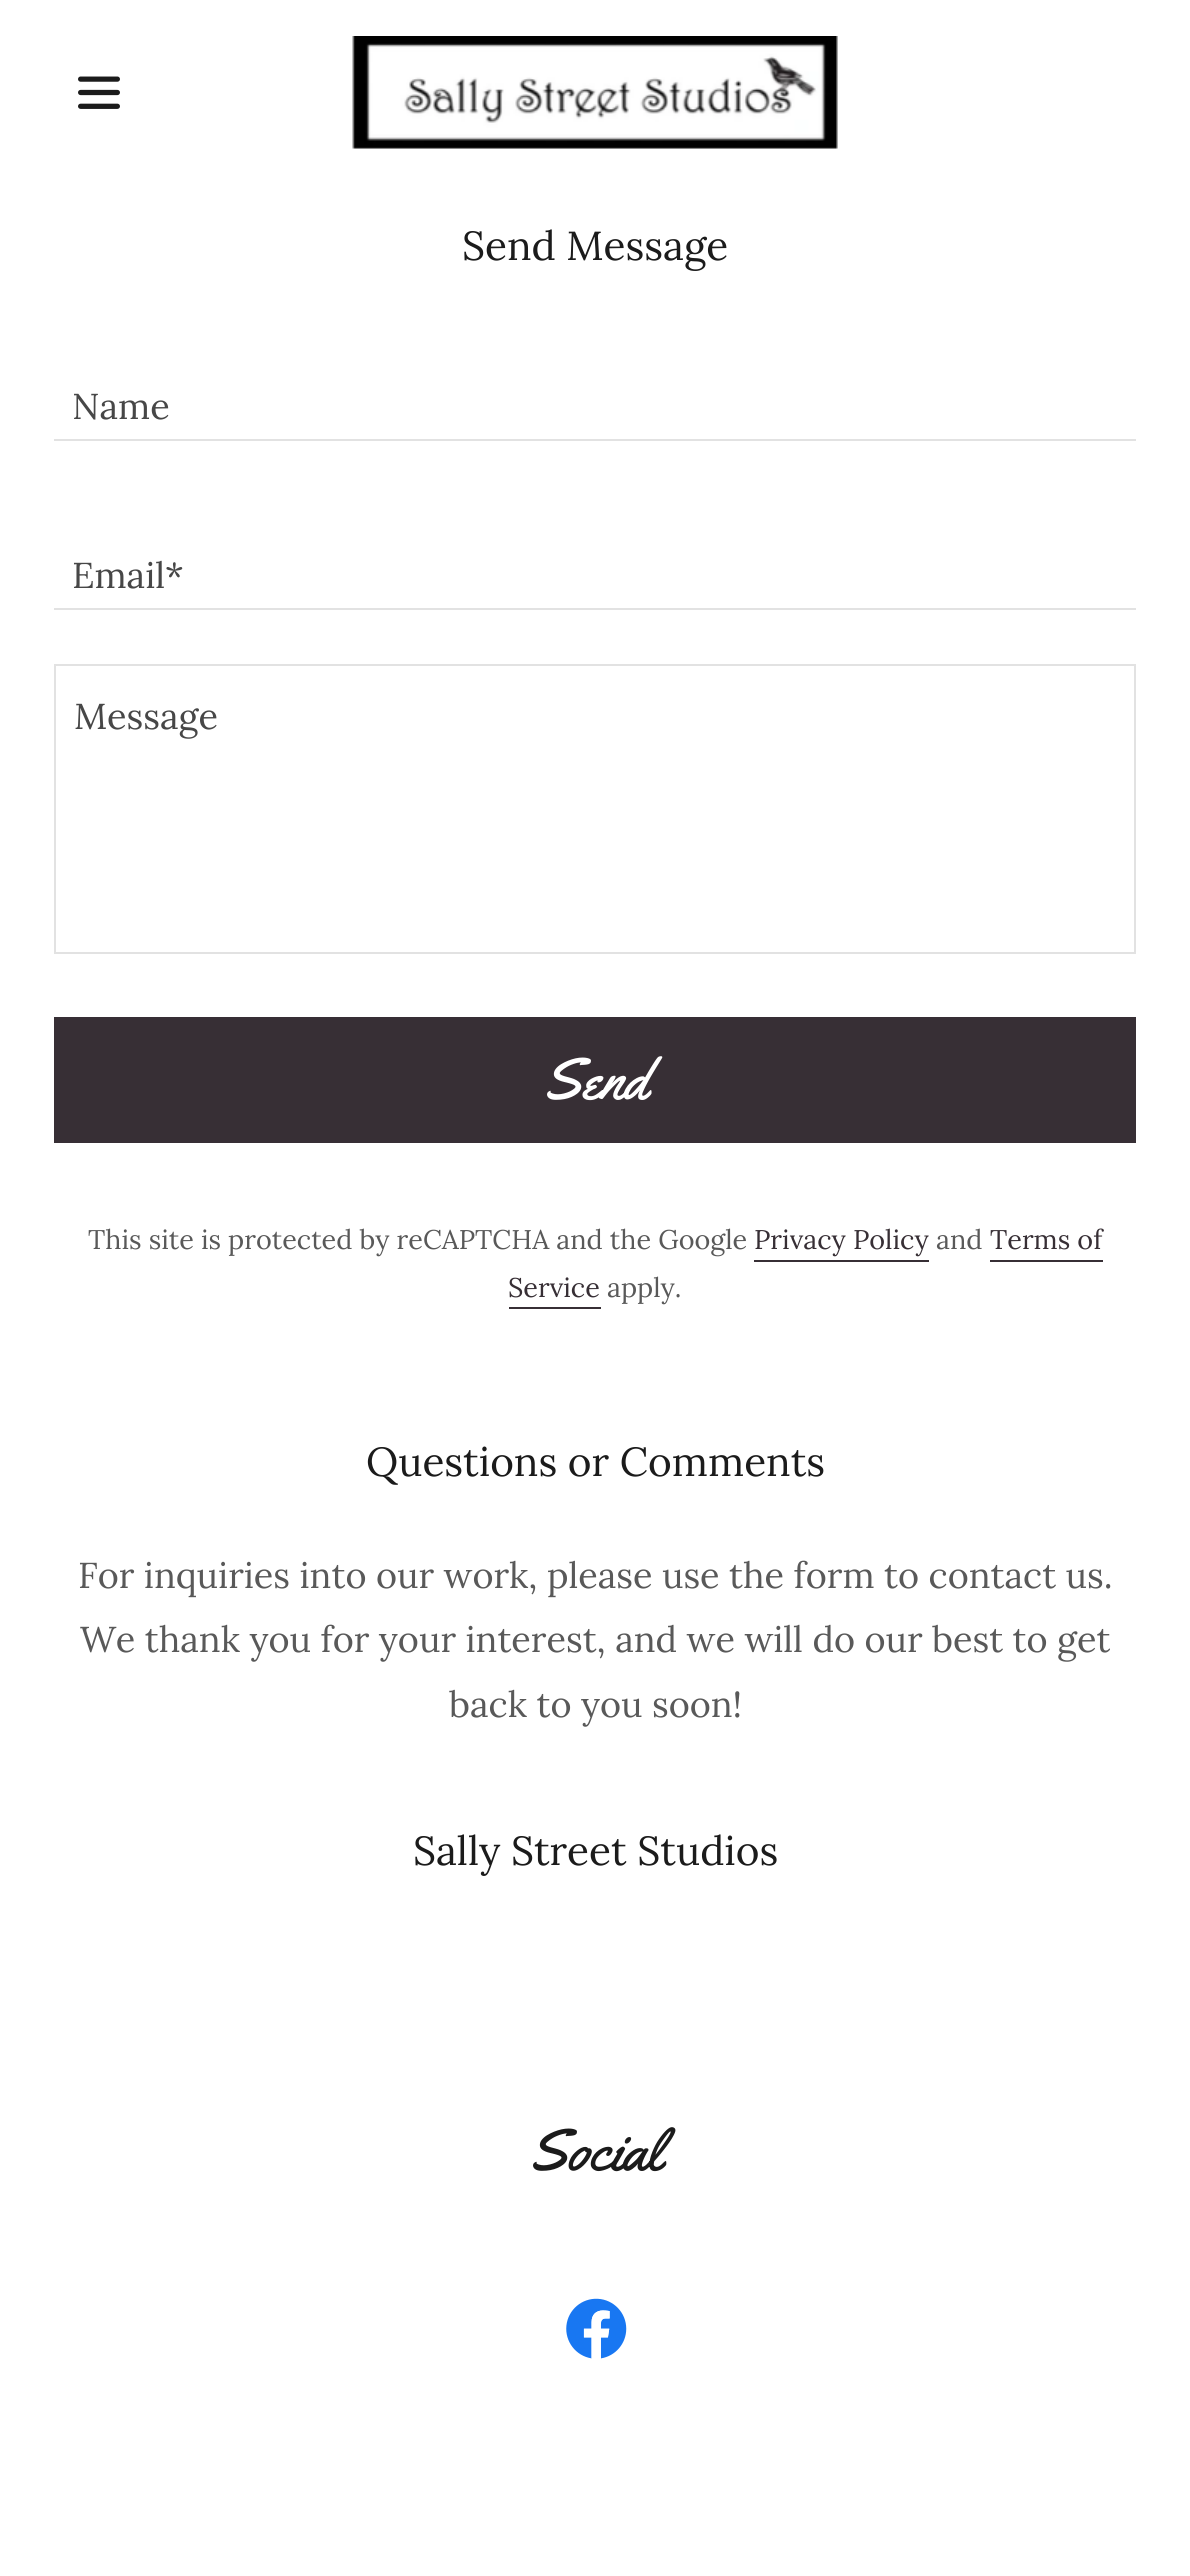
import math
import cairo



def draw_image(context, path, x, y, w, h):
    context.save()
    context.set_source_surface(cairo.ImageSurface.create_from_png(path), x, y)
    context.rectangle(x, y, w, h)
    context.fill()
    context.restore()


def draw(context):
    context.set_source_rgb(1, 1, 1)
    context.paint()
    draw_image(context, "images/1.png", 78, 76, 42, 33)
    draw_image(context, "images/2.png", 352, 36, 486, 113)
    context.set_source_rgb(226 / 255, 226 / 255, 226 / 255)
    context.rectangle(54, 439, 1082, 2)
    context.fill()
    context.rectangle(54, 608, 1082, 2)
    context.fill()
    context.rectangle(55, 665, 1080, 288)
    context.stroke()
    context.set_source_rgb(55 / 255, 47 / 255, 53 / 255)
    context.rectangle(54, 1017, 1082, 126)
    context.fill()
    context.rectangle(754, 1260, 175, 2)
    context.fill()
    context.rectangle(990, 1260, 113, 2)
    context.fill()
    context.rectangle(509, 1307, 92, 2)
    context.fill()
    draw_image(context, "images/3.png", 566, 2298, 61, 61)
    context.select_font_face("Lora")
    context.set_font_size(40.5)
    context.set_source_rgb(27 / 255, 27 / 255, 27 / 255)
    context.move_to(462, 260)
    context.show_text("Send Message")
    context.set_font_size(36)
    context.set_source_rgb(71 / 255, 71 / 255, 71 / 255)
    context.move_to(72, 419)
    context.show_text("Name")
    context.move_to(72, 588)
    context.show_text("Email*")
    context.move_to(74, 729)
    context.show_text("Message")
    context.select_font_face("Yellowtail")
    context.set_font_size(58.5)
    context.set_source_rgb(1, 1, 1)
    context.move_to(543, 1099)
    context.show_text("Send")
    context.select_font_face("Lora")
    context.set_font_size(27)
    context.set_source_rgb(89 / 255, 89 / 255, 89 / 255)
    context.move_to(88, 1249)
    context.show_text("This site is protected by reCAPTCHA and the Google")
    context.set_source_rgb(55 / 255, 47 / 255, 53 / 255)
    context.move_to(754, 1249)
    context.show_text("Privacy Policy")
    context.set_source_rgb(89 / 255, 89 / 255, 89 / 255)
    context.move_to(936, 1249)
    context.show_text("and")
    context.set_source_rgb(55 / 255, 47 / 255, 53 / 255)
    context.move_to(990, 1249)
    context.show_text("Terms of")
    context.move_to(508, 1297)
    context.show_text("Service")
    context.set_source_rgb(89 / 255, 89 / 255, 89 / 255)
    context.move_to(607, 1297)
    context.show_text("apply.")
    context.set_font_size(40.5)
    context.set_source_rgb(27 / 255, 27 / 255, 27 / 255)
    context.move_to(366, 1476)
    context.show_text("Questions or Comments")
    context.set_font_size(36)
    context.set_source_rgb(89 / 255, 89 / 255, 89 / 255)
    context.move_to(78, 1588)
    context.show_text("For inquiries into our work, please use the form to contact us.")
    context.move_to(80, 1652)
    context.show_text("We thank you for your interest, and we will do our best to get")
    context.move_to(449, 1717)
    context.show_text("back to you soon!")
    context.set_font_size(40.5)
    context.set_source_rgb(27 / 255, 27 / 255, 27 / 255)
    context.move_to(413, 1865)
    context.show_text("Sally Street Studios")
    context.select_font_face("Yellowtail")
    context.set_font_size(58.5)
    context.move_to(529, 2170)
    context.show_text("Social")


surface = cairo.ImageSurface(cairo.Format.RGB24, 1190, 2576)
context = cairo.Context(surface)
options = cairo.FontOptions()
options.set_hint_metrics(cairo.HintMetrics.OFF)
options.set_hint_style(cairo.HintStyle.NONE)
context.set_font_options(options)
context.set_miter_limit(4)
draw(context)
surface.write_to_png("out.png")
